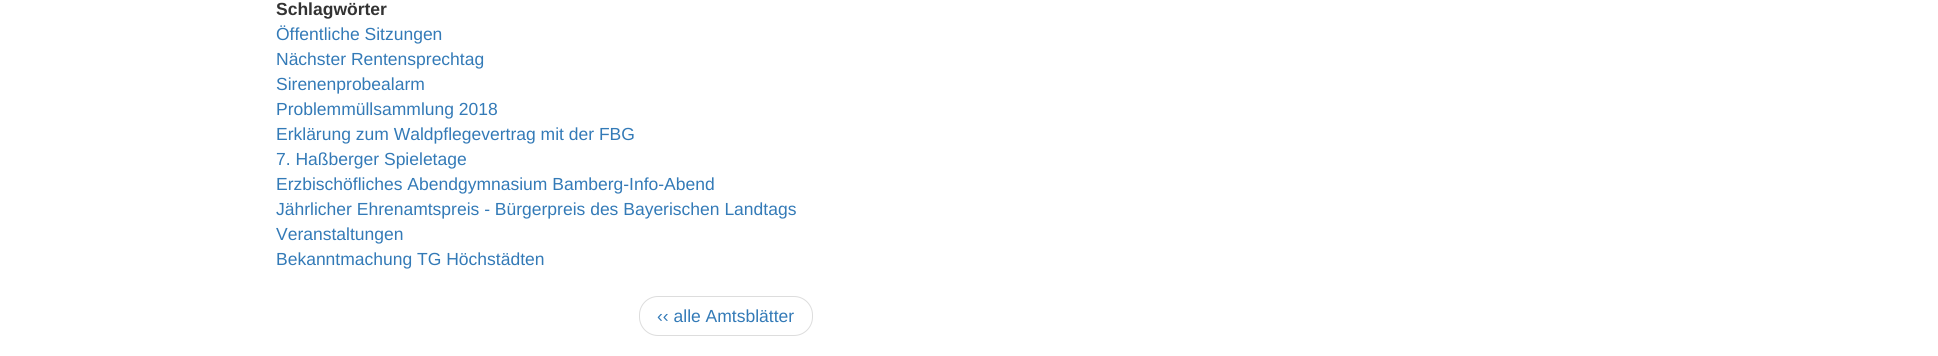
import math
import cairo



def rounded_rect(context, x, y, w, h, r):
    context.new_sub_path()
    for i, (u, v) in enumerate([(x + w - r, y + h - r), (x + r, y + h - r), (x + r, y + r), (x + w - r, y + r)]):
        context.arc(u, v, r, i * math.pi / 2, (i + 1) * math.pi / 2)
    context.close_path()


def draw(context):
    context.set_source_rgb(1, 1, 1)
    context.paint()
    rounded_rect(context, 639.5, 296.5, 173, 39, 18.5)
    context.set_source_rgb(221 / 255, 221 / 255, 221 / 255)
    context.set_line_width(1)
    context.stroke()
    context.select_font_face("Liberation Sans", cairo.FontSlant.NORMAL, cairo.FontWeight.BOLD)
    context.set_font_size(17.5)
    context.set_source_rgb(51 / 255, 51 / 255, 51 / 255)
    context.move_to(276, 15)
    context.show_text("Schlagwörter")
    context.select_font_face("Liberation Sans")
    context.set_source_rgb(51 / 255, 122 / 255, 183 / 255)
    context.move_to(276, 40)
    context.show_text("Öffentliche Sitzungen")
    context.move_to(276, 65)
    context.show_text("Nächster Rentensprechtag")
    context.move_to(276, 90)
    context.show_text("Sirenenprobealarm")
    context.move_to(276, 115)
    context.show_text("Problemmüllsammlung 2018")
    context.move_to(276, 140)
    context.show_text("Erklärung zum Waldpflegevertrag mit der FBG")
    context.move_to(276, 165)
    context.show_text("7. Haßberger Spieletage")
    context.move_to(276, 190)
    context.show_text("Erzbischöfliches Abendgymnasium Bamberg-Info-Abend")
    context.move_to(276, 215)
    context.show_text("Jährlicher Ehrenamtspreis - Bürgerpreis des Bayerischen Landtags")
    context.move_to(276, 240)
    context.show_text("Veranstaltungen")
    context.move_to(276, 265)
    context.show_text("Bekanntmachung TG Höchstädten")
    context.move_to(657, 322)
    context.show_text("‹‹ alle Amtsblätter")


surface = cairo.ImageSurface(cairo.Format.RGB24, 1938, 356)
context = cairo.Context(surface)
options = cairo.FontOptions()
options.set_hint_metrics(cairo.HintMetrics.OFF)
options.set_hint_style(cairo.HintStyle.NONE)
context.set_font_options(options)
context.set_miter_limit(4)
draw(context)
surface.write_to_png("out.png")
